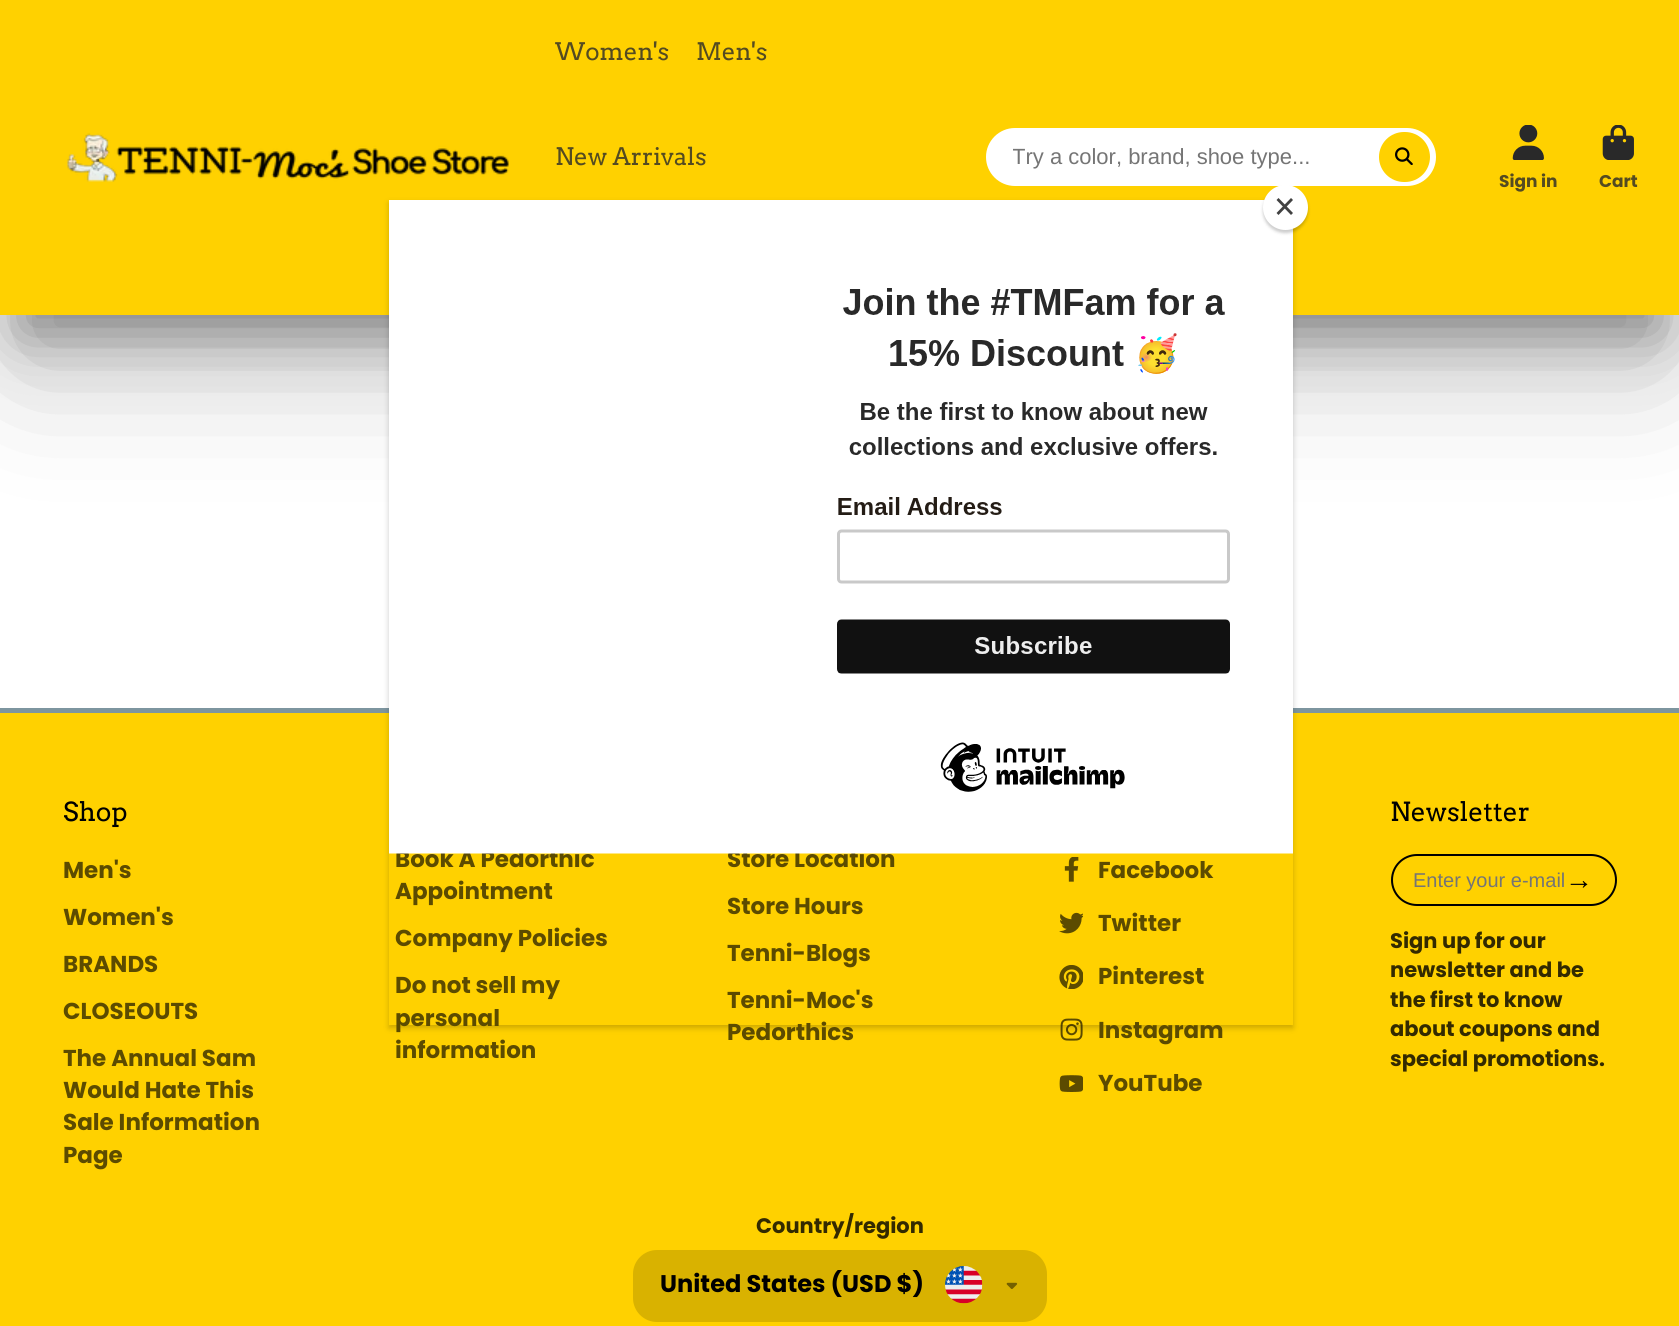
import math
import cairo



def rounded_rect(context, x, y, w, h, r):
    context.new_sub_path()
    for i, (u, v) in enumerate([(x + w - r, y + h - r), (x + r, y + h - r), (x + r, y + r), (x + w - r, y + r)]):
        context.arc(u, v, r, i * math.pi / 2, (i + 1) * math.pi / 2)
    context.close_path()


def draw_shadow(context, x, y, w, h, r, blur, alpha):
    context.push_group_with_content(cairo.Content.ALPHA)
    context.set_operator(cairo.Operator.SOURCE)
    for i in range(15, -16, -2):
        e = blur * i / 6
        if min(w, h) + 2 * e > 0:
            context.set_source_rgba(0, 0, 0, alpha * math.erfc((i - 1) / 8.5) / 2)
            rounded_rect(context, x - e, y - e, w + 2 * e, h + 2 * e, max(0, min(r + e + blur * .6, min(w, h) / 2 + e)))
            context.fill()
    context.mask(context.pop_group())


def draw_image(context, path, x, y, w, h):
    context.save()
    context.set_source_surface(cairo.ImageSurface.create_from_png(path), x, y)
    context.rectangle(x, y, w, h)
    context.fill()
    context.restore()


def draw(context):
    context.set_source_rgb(1, 1, 1)
    context.paint()
    context.set_source_rgb(28 / 255, 28 / 255, 28 / 255)
    draw_shadow(context, 21, 60, 1638, 273, 0, 29, 0.4)
    draw_shadow(context, 21, 87, 1638, 273, 0, 65.5, 0.3)
    context.set_source_rgb(1, 209 / 255, 0)
    context.rectangle(0, 0, 1679, 315)
    context.fill()
    draw_image(context, "images/1.png", 67, 133, 442, 49)
    context.set_source_rgb(1, 1, 1)
    rounded_rect(context, 986, 128, 450, 58, 29)
    context.fill()
    context.set_source_rgb(1, 209 / 255, 0)
    rounded_rect(context, 1379, 132, 51, 50, 25)
    context.fill()
    draw_image(context, "images/2.png", 1395, 147, 18, 18)
    draw_image(context, "images/3.png", 1512, 125, 32, 35)
    draw_image(context, "images/4.png", 1602, 125, 32, 35)
    context.rectangle(0, 713, 1679, 613)
    context.fill()
    context.set_source_rgb(125 / 255, 149 / 255, 159 / 255)
    context.rectangle(0, 708, 1679, 5)
    context.fill()
    draw_image(context, "images/5.png", 1064, 857, 15, 25)
    draw_image(context, "images/6.png", 1059, 912, 24, 22)
    draw_image(context, "images/7.png", 1059, 965, 24, 24)
    draw_image(context, "images/8.png", 1060, 1018, 23, 23)
    draw_image(context, "images/9.png", 1059, 1075, 24, 17)
    rounded_rect(context, 1392, 855, 224, 50, 25)
    context.set_source_rgb(0, 0, 0)
    context.stroke()
    context.set_source_rgb(217 / 255, 178 / 255, 0)
    rounded_rect(context, 633, 1250, 414, 72, 24)
    context.fill()
    draw_image(context, "images/10.png", 945, 1266, 38, 38)
    draw_image(context, "images/11.png", 1006, 1282, 12, 7)
    context.save()
    context.set_fill_rule(cairo.FillRule.EVEN_ODD)
    context.new_path()
    context.move_to(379, 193)
    context.line_to(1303, 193)
    context.line_to(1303, 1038)
    context.line_to(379, 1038)
    context.close_path()
    context.move_to(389, 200)
    context.line_to(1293, 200)
    context.line_to(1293, 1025)
    context.line_to(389, 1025)
    context.close_path()
    context.clip()
    context.set_source_rgb(0, 0, 0)
    draw_shadow(context, 389, 203, 904, 825, 0, 3, 0.2)
    context.restore()
    context.select_font_face("Arvo")
    context.set_font_size(24.1)
    context.set_source_rgb(84 / 255, 75 / 255, 33 / 255)
    context.move_to(555, 60)
    context.show_text("Women's")
    context.move_to(696, 60)
    context.show_text("Men's")
    context.move_to(555, 165)
    context.show_text("New Arrivals")
    context.save()
    context.rectangle(1013, 146, 397, 24)
    context.clip()
    context.select_font_face("Liberation Sans")
    context.set_font_size(22)
    context.set_source_rgb(117 / 255, 117 / 255, 117 / 255)
    context.move_to(1012, 164)
    context.show_text("Try a color, brand, shoe type...")
    context.restore()
    context.select_font_face("Poppins", cairo.FontSlant.NORMAL, cairo.FontWeight.BOLD)
    context.set_font_size(17)
    context.move_to(1499, 187)
    context.show_text("Sign in")
    context.move_to(1599, 187)
    context.show_text("Cart")
    context.select_font_face("Arvo")
    context.set_font_size(26.25)
    context.set_source_rgb(0, 0, 0)
    context.move_to(63, 821)
    context.show_text("Shop")
    context.select_font_face("Poppins", cairo.FontSlant.NORMAL, cairo.FontWeight.BOLD)
    context.set_font_size(23)
    context.set_source_rgb(92 / 255, 75 / 255, 0)
    context.move_to(63, 878)
    context.show_text("Men's")
    context.move_to(63, 925)
    context.show_text("Women's")
    context.move_to(63, 972)
    context.show_text("BRANDS")
    context.move_to(63, 1019)
    context.show_text("CLOSEOUTS")
    context.move_to(63, 1066)
    context.show_text("The Annual Sam")
    context.move_to(63, 1098)
    context.show_text("Would Hate This")
    context.move_to(63, 1130)
    context.show_text("Sale Information")
    context.move_to(63, 1163)
    context.show_text("Page")
    context.move_to(395, 867)
    context.show_text("Book A Pedorthic")
    context.move_to(395, 899)
    context.show_text("Appointment")
    context.move_to(395, 946)
    context.show_text("Company Policies")
    context.move_to(395, 993)
    context.show_text("Do not sell my")
    context.move_to(395, 1026)
    context.show_text("personal")
    context.move_to(395, 1058)
    context.show_text("information")
    context.move_to(727, 867)
    context.show_text("Store Location")
    context.move_to(727, 914)
    context.show_text("Store Hours")
    context.move_to(727, 961)
    context.show_text("Tenni-Blogs")
    context.move_to(727, 1008)
    context.show_text("Tenni-Moc's")
    context.move_to(727, 1040)
    context.show_text("Pedorthics")
    context.move_to(1098, 878)
    context.show_text("Facebook")
    context.move_to(1098, 931)
    context.show_text("Twitter")
    context.move_to(1098, 984)
    context.show_text("Pinterest")
    context.move_to(1098, 1038)
    context.show_text("Instagram")
    context.move_to(1098, 1091)
    context.show_text("YouTube")
    context.select_font_face("Arvo")
    context.set_font_size(26.25)
    context.set_source_rgb(0, 0, 0)
    context.move_to(1390, 821)
    context.show_text("Newsletter")
    context.select_font_face("Liberation Sans")
    context.set_font_size(20)
    context.set_source_rgb(117 / 255, 117 / 255, 117 / 255)
    context.move_to(1413, 887)
    context.show_text("Enter your e-mail")
    context.set_font_size(28)
    context.set_source_rgb(0, 0, 0)
    context.move_to(1565, 889)
    context.show_text("→")
    context.select_font_face("Poppins", cairo.FontSlant.NORMAL, cairo.FontWeight.BOLD)
    context.set_font_size(21)
    context.set_source_rgb(51 / 255, 42 / 255, 0)
    context.move_to(1390, 948)
    context.show_text("Sign up for our")
    context.move_to(1390, 977)
    context.show_text("newsletter and be")
    context.move_to(1390, 1007)
    context.show_text("the first to know")
    context.move_to(1390, 1036)
    context.show_text("about coupons and")
    context.move_to(1390, 1066)
    context.show_text("special promotions.")
    context.move_to(756, 1233)
    context.show_text("Country/region")
    context.set_font_size(24.1)
    context.set_source_rgb(0, 0, 0)
    context.move_to(660, 1292)
    context.show_text("United States (USD $)")
    draw_image(context, "images/12.png", 389, 200, 904, 654)
    context.set_source_rgb(0, 0, 0)
    draw_shadow(context, 1263, 188, 45, 45, 22.5, 1.5, 0.2)
    context.set_source_rgb(1, 1, 1)
    context.arc(1285.5, 207.5, 22.5, 0, 2 * math.pi)
    context.fill()
    context.set_source_rgb(65 / 255, 65 / 255, 65 / 255)
    context.new_path()
    context.move_to(1291, 198)
    context.line_to(1293, 200)
    context.line_to(1278.5, 215)
    context.line_to(1276.5, 213)
    context.close_path()
    context.fill()
    context.new_path()
    context.move_to(1276.5, 200)
    context.line_to(1278.5, 198)
    context.line_to(1293, 213)
    context.line_to(1291, 215)
    context.close_path()
    context.fill()


surface = cairo.ImageSurface(cairo.Format.RGB24, 1679, 1326)
context = cairo.Context(surface)
options = cairo.FontOptions()
options.set_hint_metrics(cairo.HintMetrics.OFF)
options.set_hint_style(cairo.HintStyle.NONE)
context.set_font_options(options)
context.set_miter_limit(4)
draw(context)
surface.write_to_png("out.png")
